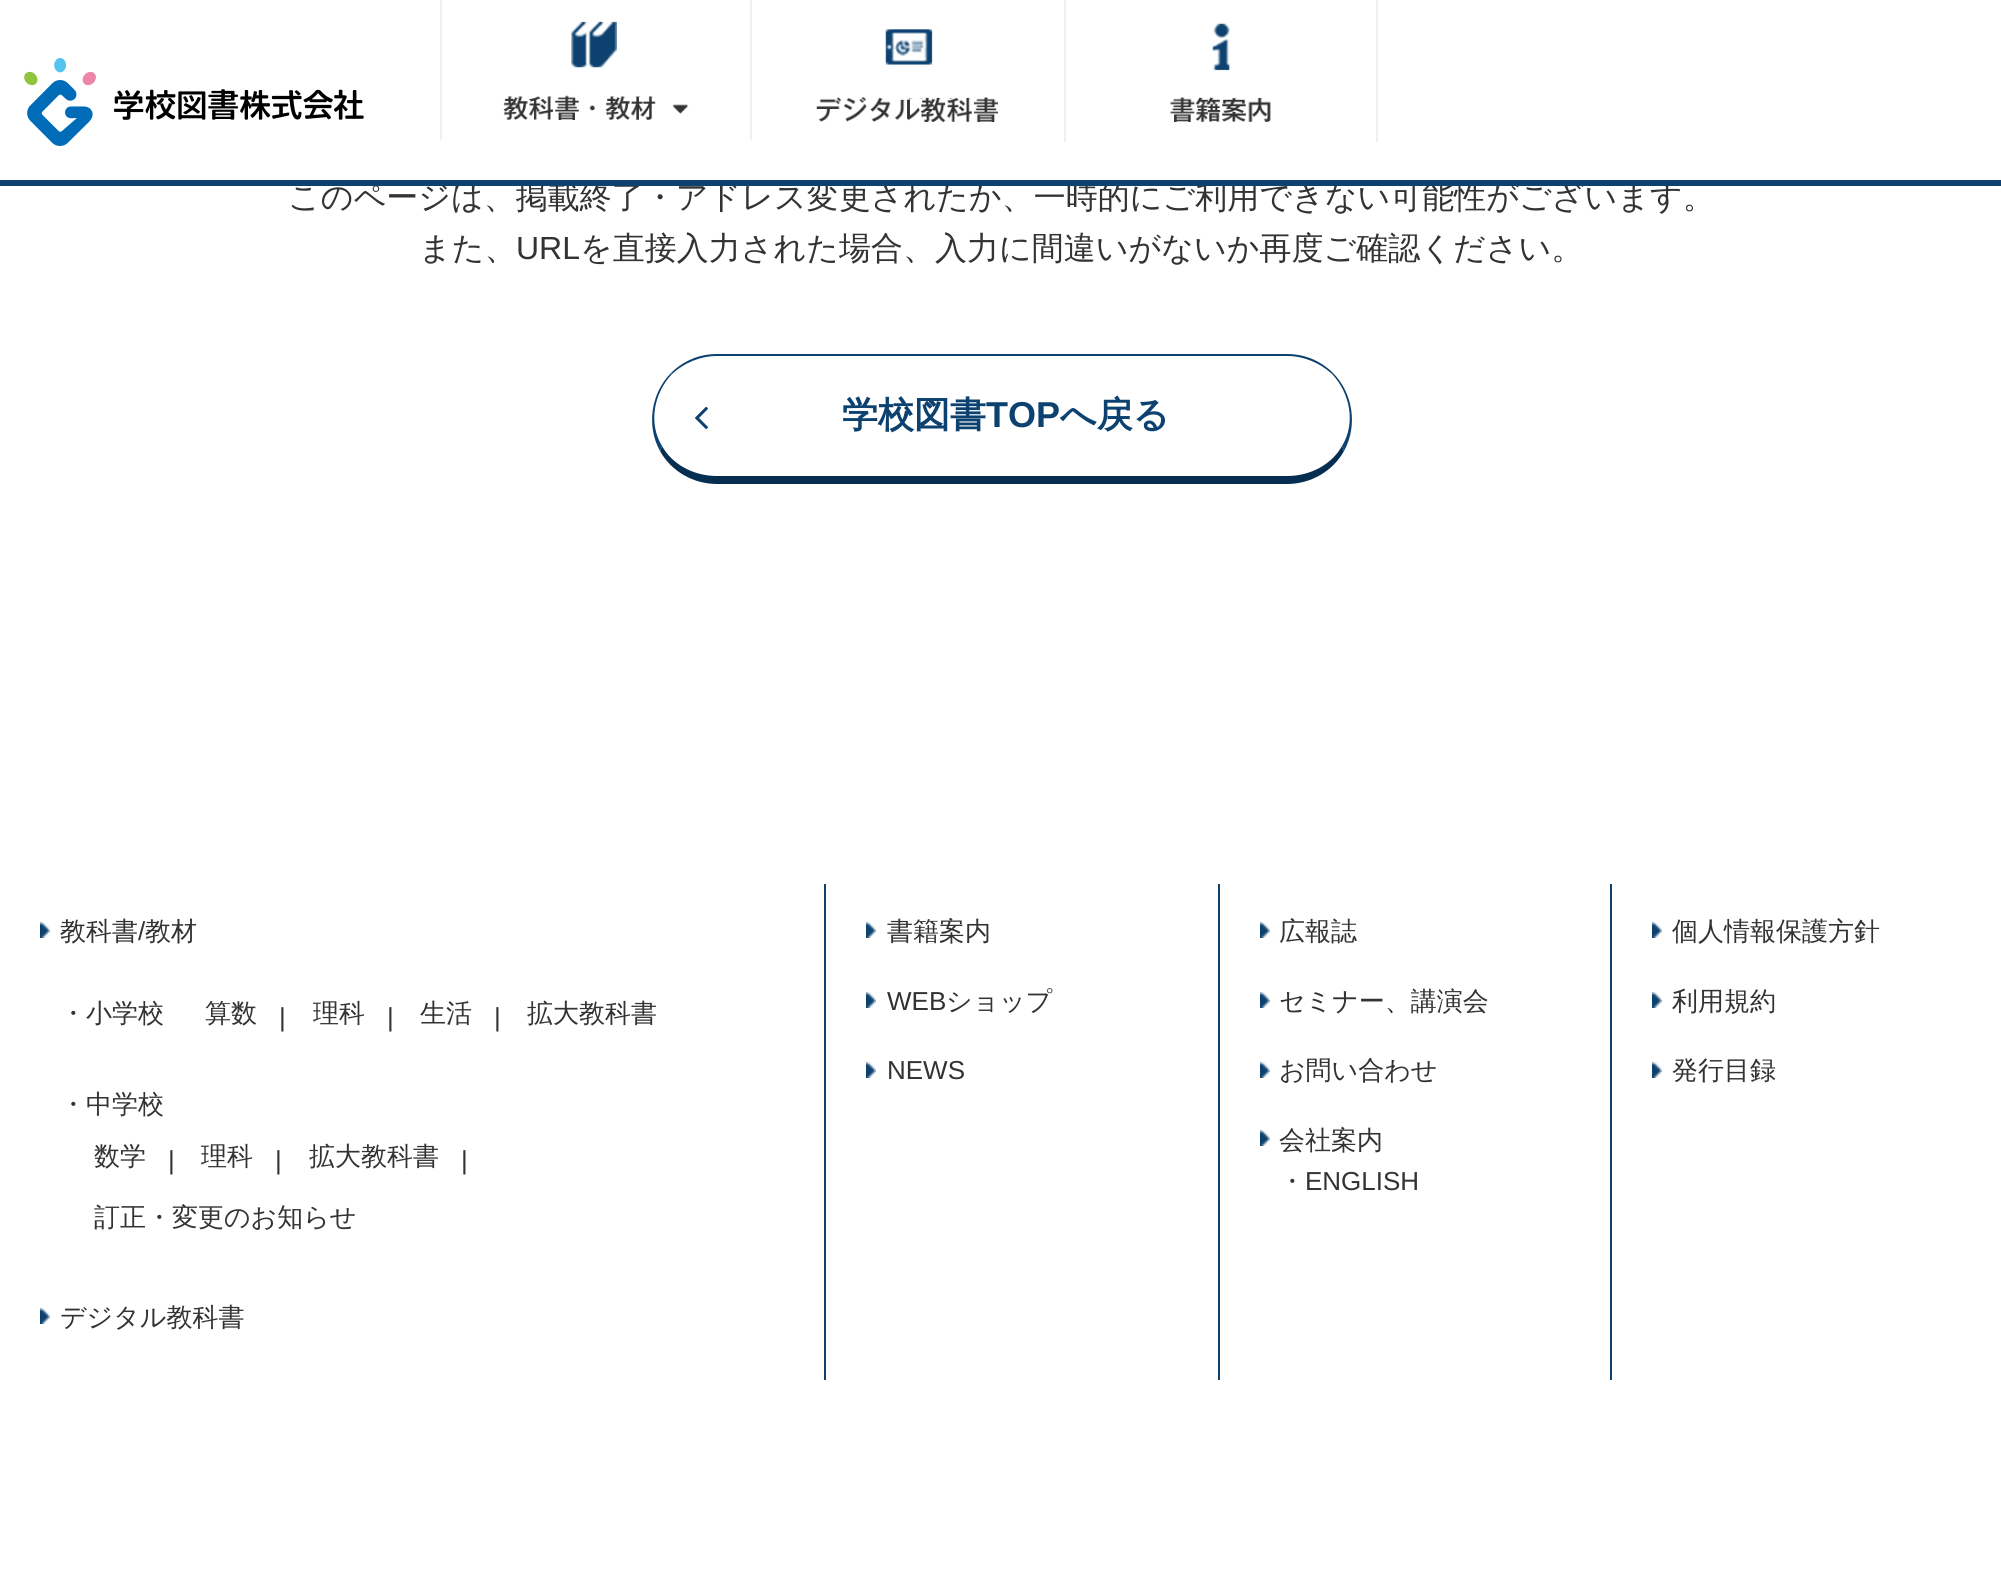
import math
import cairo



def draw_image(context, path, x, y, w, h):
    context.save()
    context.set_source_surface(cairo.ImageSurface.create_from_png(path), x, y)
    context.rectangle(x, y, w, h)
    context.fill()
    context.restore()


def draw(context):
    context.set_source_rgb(1, 1, 1)
    context.paint()
    draw_image(context, "images/1.png", 24, 58, 340, 88)
    context.set_source_rgb(240 / 255, 240 / 255, 240 / 255)
    context.rectangle(750, 0, 2, 140)
    context.fill()
    context.rectangle(440, 0, 2, 140)
    context.fill()
    draw_image(context, "images/2.png", 503, 21, 186, 99)
    context.rectangle(1064, 0, 2, 142)
    context.fill()
    draw_image(context, "images/3.png", 816, 29, 182, 93)
    context.rectangle(1376, 0, 2, 142)
    context.fill()
    draw_image(context, "images/4.png", 1170, 23, 101, 99)
    context.set_source_rgb(13 / 255, 66 / 255, 112 / 255)
    context.new_path()
    context.move_to(717, 354)
    context.curve_to(699, 354, 683, 361, 671, 373)
    context.line_to(672, 374)
    context.curve_to(684, 363, 700, 356, 717, 356)
    context.line_to(1287, 356)
    context.curve_to(1304, 356, 1320, 363, 1332, 374)
    context.line_to(1333, 373)
    context.curve_to(1321, 361, 1305, 354, 1287, 354)
    context.close_path()
    context.fill()
    context.new_path()
    context.move_to(1333, 373)
    context.curve_to(1353, 393, 1358, 426, 1344, 451)
    context.line_to(1342, 446)
    context.curve_to(1356, 423, 1350, 393, 1332, 374)
    context.close_path()
    context.fill()
    context.set_source_rgb(5 / 255, 46 / 255, 81 / 255)
    context.new_path()
    context.move_to(717, 484)
    context.line_to(1287, 484)
    context.curve_to(1311, 484, 1333, 471, 1344, 451)
    context.line_to(1342, 446)
    context.curve_to(1332, 464, 1311, 476, 1287, 476)
    context.line_to(717, 476)
    context.curve_to(693, 476, 672, 464, 662, 446)
    context.line_to(660, 451)
    context.curve_to(671, 471, 693, 484, 717, 484)
    context.close_path()
    context.fill()
    context.set_source_rgb(13 / 255, 66 / 255, 112 / 255)
    context.new_path()
    context.move_to(660, 451)
    context.curve_to(646, 426, 651, 393, 671, 373)
    context.line_to(672, 374)
    context.curve_to(654, 393, 648, 423, 662, 446)
    context.close_path()
    context.fill()
    draw_image(context, "images/5.png", 695, 406, 13, 23)
    draw_image(context, "images/6.png", 40, 922, 10, 16)
    draw_image(context, "images/6.png", 40, 1308, 10, 16)
    context.rectangle(824, 884, 2, 496)
    context.fill()
    draw_image(context, "images/6.png", 866, 922, 10, 16)
    draw_image(context, "images/6.png", 866, 992, 10, 16)
    draw_image(context, "images/6.png", 866, 1062, 10, 16)
    context.rectangle(1218, 884, 2, 496)
    context.fill()
    draw_image(context, "images/6.png", 1260, 922, 10, 16)
    draw_image(context, "images/6.png", 1260, 992, 10, 16)
    draw_image(context, "images/6.png", 1260, 1062, 10, 16)
    draw_image(context, "images/6.png", 1260, 1130, 10, 16)
    context.rectangle(1610, 884, 2, 496)
    context.fill()
    draw_image(context, "images/6.png", 1652, 922, 10, 16)
    draw_image(context, "images/6.png", 1652, 992, 10, 16)
    draw_image(context, "images/6.png", 1652, 1062, 10, 16)
    context.select_font_face("WenQuanYi Zen Hei Medium")
    context.set_font_size(32)
    context.set_source_rgb(51 / 255, 51 / 255, 51 / 255)
    context.move_to(288, 208)
    context.show_text("このページは、掲載終了・アドレス変更されたか、一時的にご利用できない可能性がございます。")
    context.set_source_rgb(13 / 255, 66 / 255, 112 / 255)
    context.rectangle(0, 180, 2001, 6)
    context.fill()
    context.set_source_rgb(51 / 255, 51 / 255, 51 / 255)
    context.move_to(419, 259)
    context.show_text("また、")
    context.select_font_face("Liberation Sans")
    context.move_to(516, 259)
    context.show_text("URL")
    context.select_font_face("WenQuanYi Zen Hei Medium")
    context.move_to(580, 259)
    context.show_text("を直接入力された場合、入力に間違いがないか再度ご確認ください。")
    context.select_font_face("WenQuanYi Zen Hei", cairo.FontSlant.NORMAL, cairo.FontWeight.BOLD)
    context.set_font_size(36)
    context.set_source_rgb(13 / 255, 66 / 255, 112 / 255)
    context.move_to(842, 427)
    context.show_text("学校図書")
    context.select_font_face("Liberation Sans", cairo.FontSlant.NORMAL, cairo.FontWeight.BOLD)
    context.move_to(986, 427)
    context.show_text("TOP")
    context.select_font_face("WenQuanYi Zen Hei", cairo.FontSlant.NORMAL, cairo.FontWeight.BOLD)
    context.move_to(1060, 427)
    context.show_text("へ戻る")
    context.select_font_face("WenQuanYi Zen Hei Medium")
    context.set_font_size(26)
    context.set_source_rgb(51 / 255, 51 / 255, 51 / 255)
    context.move_to(60, 940)
    context.show_text("教科書")
    context.select_font_face("Liberation Sans")
    context.move_to(138, 940)
    context.show_text("/")
    context.select_font_face("WenQuanYi Zen Hei Medium")
    context.move_to(145, 940)
    context.show_text("教材")
    context.move_to(60, 1022)
    context.show_text("・小学校")
    context.move_to(205, 1022)
    context.show_text("算数")
    context.select_font_face("Liberation Sans")
    context.move_to(279, 1026)
    context.show_text("|")
    context.select_font_face("WenQuanYi Zen Hei Medium")
    context.move_to(313, 1022)
    context.show_text("理科")
    context.select_font_face("Liberation Sans")
    context.move_to(387, 1026)
    context.show_text("|")
    context.select_font_face("WenQuanYi Zen Hei Medium")
    context.move_to(420, 1022)
    context.show_text("生活")
    context.select_font_face("Liberation Sans")
    context.move_to(494, 1026)
    context.show_text("|")
    context.select_font_face("WenQuanYi Zen Hei Medium")
    context.move_to(527, 1022)
    context.show_text("拡大教科書")
    context.move_to(60, 1113)
    context.show_text("・中学校")
    context.move_to(94, 1165)
    context.show_text("数学")
    context.select_font_face("Liberation Sans")
    context.move_to(168, 1169)
    context.show_text("|")
    context.select_font_face("WenQuanYi Zen Hei Medium")
    context.move_to(201, 1165)
    context.show_text("理科")
    context.select_font_face("Liberation Sans")
    context.move_to(275, 1169)
    context.show_text("|")
    context.select_font_face("WenQuanYi Zen Hei Medium")
    context.move_to(309, 1165)
    context.show_text("拡大教科書")
    context.select_font_face("Liberation Sans")
    context.move_to(461, 1169)
    context.show_text("|")
    context.select_font_face("WenQuanYi Zen Hei Medium")
    context.move_to(94, 1226)
    context.show_text("訂正・変更のお知らせ")
    context.move_to(60, 1326)
    context.show_text("デジタル教科書")
    context.move_to(887, 940)
    context.show_text("書籍案内")
    context.select_font_face("Liberation Sans")
    context.move_to(887, 1010)
    context.show_text("WEB")
    context.select_font_face("WenQuanYi Zen Hei Medium")
    context.move_to(946, 1010)
    context.show_text("ショップ")
    context.select_font_face("Liberation Sans")
    context.move_to(887, 1079)
    context.show_text("NEWS")
    context.select_font_face("WenQuanYi Zen Hei Medium")
    context.move_to(1279, 940)
    context.show_text("広報誌")
    context.move_to(1279, 1010)
    context.show_text("セミナー、講演会")
    context.move_to(1279, 1079)
    context.show_text("お問い合わせ")
    context.move_to(1279, 1149)
    context.show_text("会社案内")
    context.move_to(1279, 1190)
    context.show_text("・")
    context.select_font_face("Liberation Sans")
    context.move_to(1305, 1190)
    context.show_text("ENGLISH")
    context.select_font_face("WenQuanYi Zen Hei Medium")
    context.move_to(1672, 940)
    context.show_text("個人情報保護方針")
    context.move_to(1672, 1010)
    context.show_text("利用規約")
    context.move_to(1672, 1079)
    context.show_text("発行目録")


surface = cairo.ImageSurface(cairo.Format.RGB24, 2001, 1570)
context = cairo.Context(surface)
options = cairo.FontOptions()
options.set_hint_metrics(cairo.HintMetrics.OFF)
options.set_hint_style(cairo.HintStyle.NONE)
context.set_font_options(options)
context.set_miter_limit(4)
draw(context)
surface.write_to_png("out.png")
